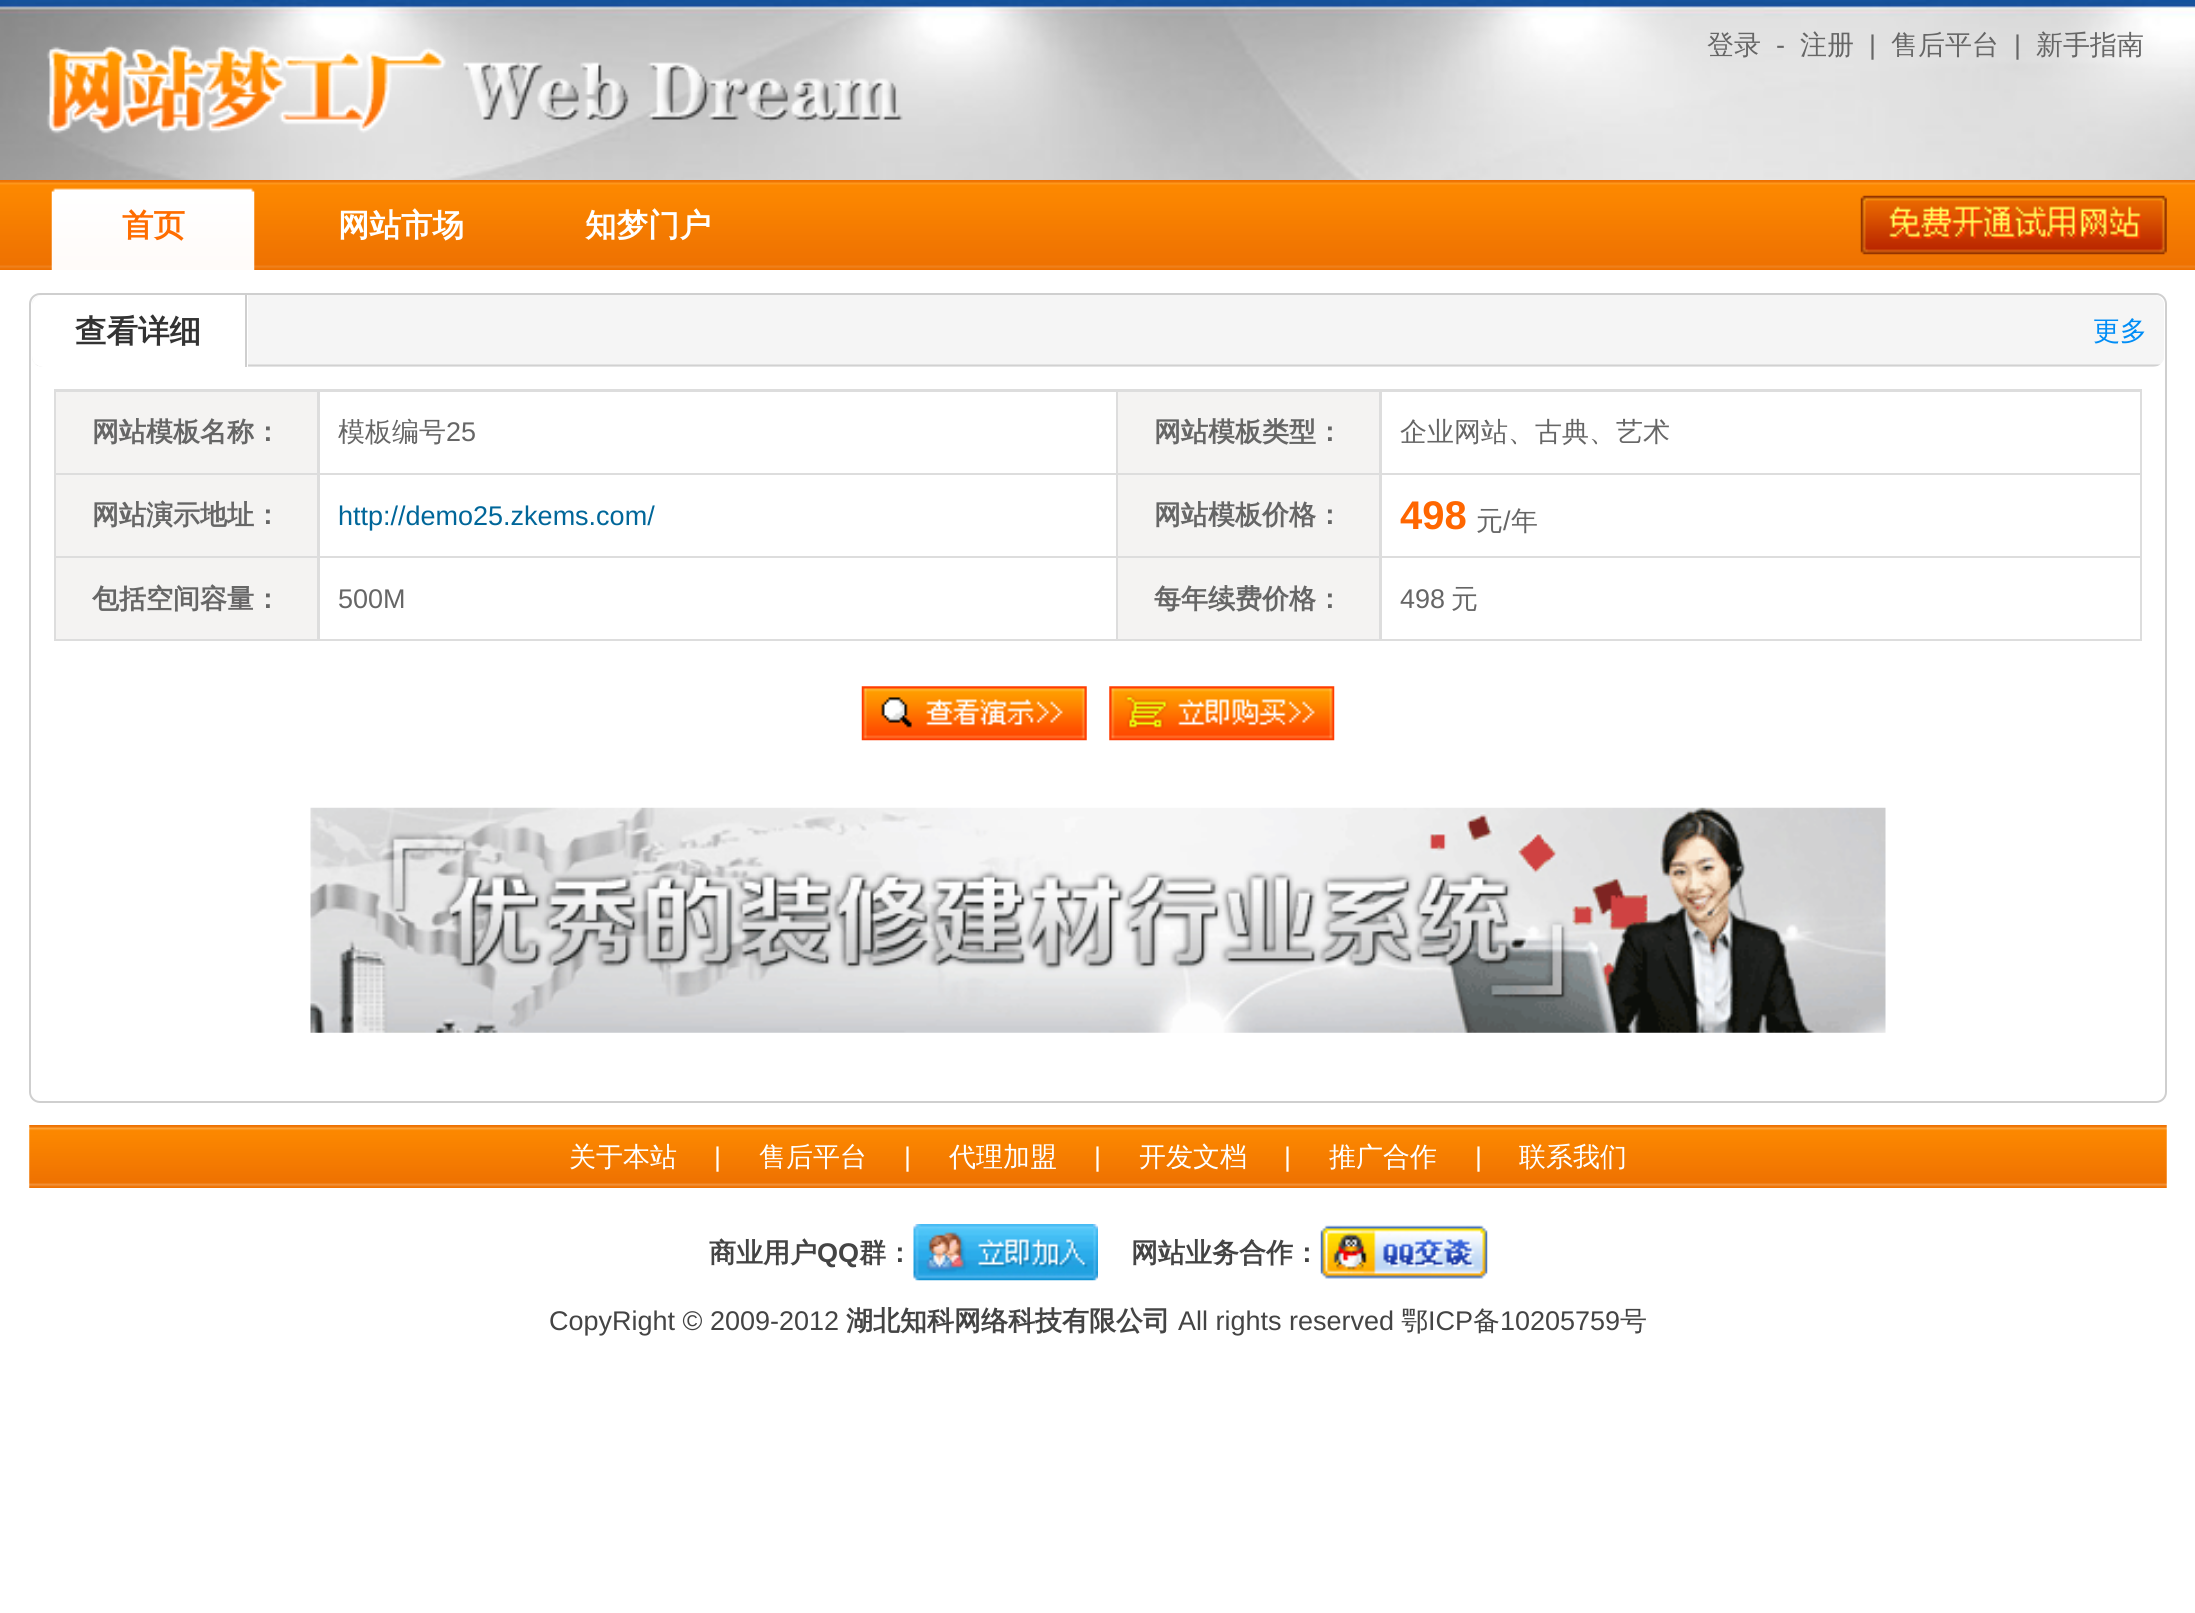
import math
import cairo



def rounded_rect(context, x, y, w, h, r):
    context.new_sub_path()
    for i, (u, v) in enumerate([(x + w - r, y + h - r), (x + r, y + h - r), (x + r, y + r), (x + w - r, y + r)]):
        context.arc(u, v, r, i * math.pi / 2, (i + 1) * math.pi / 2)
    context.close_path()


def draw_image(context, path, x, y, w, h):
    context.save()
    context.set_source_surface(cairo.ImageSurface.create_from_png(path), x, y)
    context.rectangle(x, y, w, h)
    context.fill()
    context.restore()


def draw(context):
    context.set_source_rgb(1, 1, 1)
    context.paint()
    draw_image(context, "images/1.png", 0, 0, 2195, 180)
    draw_image(context, "images/2.png", 46, 44, 857, 90)
    draw_image(context, "images/3.png", 0, 180, 2195, 90)
    draw_image(context, "images/4.png", 51, 188, 204, 82)
    draw_image(context, "images/5.png", 1860, 195, 307, 60)
    rounded_rect(context, 30, 294, 2136, 808, 10)
    context.set_source_rgb(207 / 255, 207 / 255, 207 / 255)
    context.stroke()
    draw_image(context, "images/6.png", 32, 295, 2132, 72)
    context.set_source_rgb(1, 1, 1)
    context.new_path()
    context.move_to(43, 295)
    context.line_to(248, 295)
    context.line_to(248, 367)
    context.line_to(43, 367)
    context.curve_to(37, 367, 32, 362, 32, 356)
    context.line_to(32, 306)
    context.curve_to(32, 300, 37, 295, 43, 295)
    context.close_path()
    context.fill()
    context.set_source_rgb(207 / 255, 207 / 255, 207 / 255)
    context.rectangle(245, 295, 2, 72)
    context.fill()
    context.set_source_rgb(221 / 255, 221 / 255, 221 / 255)
    context.rectangle(54, 389, 2088, 252)
    context.fill()
    context.set_source_rgb(244 / 255, 243 / 255, 242 / 255)
    context.rectangle(56, 392, 261, 81)
    context.fill()
    context.set_source_rgb(1, 1, 1)
    context.rectangle(320, 392, 796, 81)
    context.fill()
    context.set_source_rgb(244 / 255, 243 / 255, 242 / 255)
    context.rectangle(1118, 392, 261, 81)
    context.fill()
    context.set_source_rgb(1, 1, 1)
    context.rectangle(1382, 392, 758, 81)
    context.fill()
    context.set_source_rgb(244 / 255, 243 / 255, 242 / 255)
    context.rectangle(56, 475, 261, 81)
    context.fill()
    context.set_source_rgb(1, 1, 1)
    context.rectangle(320, 475, 796, 81)
    context.fill()
    context.set_source_rgb(244 / 255, 243 / 255, 242 / 255)
    context.rectangle(1118, 475, 261, 81)
    context.fill()
    context.set_source_rgb(1, 1, 1)
    context.rectangle(1382, 475, 758, 81)
    context.fill()
    context.set_source_rgb(244 / 255, 243 / 255, 242 / 255)
    context.rectangle(56, 558, 261, 81)
    context.fill()
    context.set_source_rgb(1, 1, 1)
    context.rectangle(320, 558, 796, 81)
    context.fill()
    context.set_source_rgb(244 / 255, 243 / 255, 242 / 255)
    context.rectangle(1118, 558, 261, 81)
    context.fill()
    context.set_source_rgb(1, 1, 1)
    context.rectangle(1382, 558, 758, 81)
    context.fill()
    draw_image(context, "images/7.png", 861, 686, 226, 55)
    draw_image(context, "images/8.png", 1109, 686, 226, 55)
    draw_image(context, "images/9.png", 310, 807, 1576, 226)
    draw_image(context, "images/10.png", 29, 1125, 2138, 63)
    draw_image(context, "images/11.png", 913, 1224, 185, 57)
    draw_image(context, "images/12.png", 1320, 1225, 168, 54)
    context.select_font_face("WenQuanYi Zen Hei Medium")
    context.set_font_size(27)
    context.set_source_rgb(102 / 255, 102 / 255, 102 / 255)
    context.move_to(1707, 54)
    context.show_text("登录")
    context.select_font_face("Liberation Sans")
    context.move_to(1776, 54)
    context.show_text("-")
    context.select_font_face("WenQuanYi Zen Hei Medium")
    context.move_to(1800, 54)
    context.show_text("注册")
    context.select_font_face("Liberation Sans")
    context.move_to(1869, 54)
    context.show_text("|")
    context.select_font_face("WenQuanYi Zen Hei Medium")
    context.move_to(1891, 54)
    context.show_text("售后平台")
    context.select_font_face("Liberation Sans")
    context.move_to(2014, 54)
    context.show_text("|")
    context.select_font_face("WenQuanYi Zen Hei Medium")
    context.move_to(2036, 54)
    context.show_text("新手指南")
    context.select_font_face("WenQuanYi Zen Hei", cairo.FontSlant.NORMAL, cairo.FontWeight.BOLD)
    context.set_font_size(31.5)
    context.set_source_rgb(1, 109 / 255, 0)
    context.move_to(122, 236)
    context.show_text("首页")
    context.set_source_rgb(1, 1, 1)
    context.move_to(338, 236)
    context.show_text("网站市场")
    context.move_to(585, 236)
    context.show_text("知梦门户")
    context.set_source_rgb(51 / 255, 51 / 255, 51 / 255)
    context.move_to(75, 342)
    context.show_text("查看详细")
    context.select_font_face("WenQuanYi Zen Hei Medium")
    context.set_font_size(27)
    context.set_source_rgb(0, 141 / 255, 246 / 255)
    context.move_to(2093, 340)
    context.show_text("更多")
    context.select_font_face("WenQuanYi Zen Hei", cairo.FontSlant.NORMAL, cairo.FontWeight.BOLD)
    context.set_source_rgb(102 / 255, 102 / 255, 102 / 255)
    context.move_to(92, 441)
    context.show_text("网站模板名称：")
    context.select_font_face("WenQuanYi Zen Hei Medium")
    context.move_to(338, 441)
    context.show_text("模板编号")
    context.select_font_face("Liberation Sans")
    context.move_to(446, 441)
    context.show_text("25")
    context.select_font_face("WenQuanYi Zen Hei", cairo.FontSlant.NORMAL, cairo.FontWeight.BOLD)
    context.move_to(1154, 441)
    context.show_text("网站模板类型：")
    context.select_font_face("WenQuanYi Zen Hei Medium")
    context.move_to(1400, 441)
    context.show_text("企业网站、古典、艺术")
    context.select_font_face("WenQuanYi Zen Hei", cairo.FontSlant.NORMAL, cairo.FontWeight.BOLD)
    context.move_to(92, 524)
    context.show_text("网站演示地址：")
    context.select_font_face("Liberation Sans")
    context.set_source_rgb(0, 102 / 255, 153 / 255)
    context.move_to(338, 525)
    context.show_text("http://demo25.zkems.com/")
    context.select_font_face("WenQuanYi Zen Hei", cairo.FontSlant.NORMAL, cairo.FontWeight.BOLD)
    context.set_source_rgb(102 / 255, 102 / 255, 102 / 255)
    context.move_to(1154, 524)
    context.show_text("网站模板价格：")
    context.select_font_face("Liberation Sans", cairo.FontSlant.NORMAL, cairo.FontWeight.BOLD)
    context.set_font_size(40)
    context.set_source_rgb(1, 102 / 255, 0)
    context.move_to(1400, 529)
    context.show_text("498")
    context.select_font_face("WenQuanYi Zen Hei Medium")
    context.set_font_size(27)
    context.set_source_rgb(102 / 255, 102 / 255, 102 / 255)
    context.move_to(1476, 530)
    context.show_text("元")
    context.select_font_face("Liberation Sans")
    context.move_to(1503, 530)
    context.show_text("/")
    context.select_font_face("WenQuanYi Zen Hei Medium")
    context.move_to(1511, 530)
    context.show_text("年")
    context.select_font_face("WenQuanYi Zen Hei", cairo.FontSlant.NORMAL, cairo.FontWeight.BOLD)
    context.move_to(92, 608)
    context.show_text("包括空间容量：")
    context.select_font_face("Liberation Sans")
    context.move_to(338, 608)
    context.show_text("500M")
    context.select_font_face("WenQuanYi Zen Hei", cairo.FontSlant.NORMAL, cairo.FontWeight.BOLD)
    context.move_to(1154, 608)
    context.show_text("每年续费价格：")
    context.select_font_face("Liberation Sans")
    context.move_to(1400, 608)
    context.show_text("498")
    context.select_font_face("WenQuanYi Zen Hei Medium")
    context.move_to(1451, 608)
    context.show_text("元")
    context.set_source_rgb(1, 1, 1)
    context.move_to(569, 1166)
    context.show_text("关于本站")
    context.select_font_face("Liberation Sans")
    context.move_to(714, 1166)
    context.show_text("|")
    context.select_font_face("WenQuanYi Zen Hei Medium")
    context.move_to(759, 1166)
    context.show_text("售后平台")
    context.select_font_face("Liberation Sans")
    context.move_to(904, 1166)
    context.show_text("|")
    context.select_font_face("WenQuanYi Zen Hei Medium")
    context.move_to(949, 1166)
    context.show_text("代理加盟")
    context.select_font_face("Liberation Sans")
    context.move_to(1094, 1166)
    context.show_text("|")
    context.select_font_face("WenQuanYi Zen Hei Medium")
    context.move_to(1139, 1166)
    context.show_text("开发文档")
    context.select_font_face("Liberation Sans")
    context.move_to(1284, 1166)
    context.show_text("|")
    context.select_font_face("WenQuanYi Zen Hei Medium")
    context.move_to(1329, 1166)
    context.show_text("推广合作")
    context.select_font_face("Liberation Sans")
    context.move_to(1475, 1166)
    context.show_text("|")
    context.select_font_face("WenQuanYi Zen Hei Medium")
    context.move_to(1519, 1166)
    context.show_text("联系我们")
    context.select_font_face("WenQuanYi Zen Hei", cairo.FontSlant.NORMAL, cairo.FontWeight.BOLD)
    context.set_source_rgb(68 / 255, 68 / 255, 68 / 255)
    context.move_to(709, 1262)
    context.show_text("商业用户")
    context.select_font_face("Liberation Sans", cairo.FontSlant.NORMAL, cairo.FontWeight.BOLD)
    context.move_to(817, 1262)
    context.show_text("QQ")
    context.select_font_face("WenQuanYi Zen Hei", cairo.FontSlant.NORMAL, cairo.FontWeight.BOLD)
    context.move_to(859, 1262)
    context.show_text("群：")
    context.move_to(1131, 1262)
    context.show_text("网站业务合作：")
    context.select_font_face("Liberation Sans")
    context.move_to(549, 1330)
    context.show_text("CopyRight © 2009-2012")
    context.select_font_face("WenQuanYi Zen Hei", cairo.FontSlant.NORMAL, cairo.FontWeight.BOLD)
    context.move_to(846, 1330)
    context.show_text("湖北知科网络科技有限公司")
    context.select_font_face("Liberation Sans")
    context.move_to(1178, 1330)
    context.show_text("All rights reserved")
    context.select_font_face("WenQuanYi Zen Hei Medium")
    context.move_to(1401, 1330)
    context.show_text("鄂")
    context.select_font_face("Liberation Sans")
    context.move_to(1428, 1330)
    context.show_text("ICP")
    context.select_font_face("WenQuanYi Zen Hei Medium")
    context.move_to(1473, 1330)
    context.show_text("备")
    context.select_font_face("Liberation Sans")
    context.move_to(1500, 1330)
    context.show_text("10205759")
    context.select_font_face("WenQuanYi Zen Hei Medium")
    context.move_to(1620, 1330)
    context.show_text("号")


surface = cairo.ImageSurface(cairo.Format.RGB24, 2195, 1613)
context = cairo.Context(surface)
options = cairo.FontOptions()
options.set_hint_metrics(cairo.HintMetrics.OFF)
options.set_hint_style(cairo.HintStyle.NONE)
context.set_font_options(options)
context.set_miter_limit(4)
draw(context)
surface.write_to_png("out.png")
